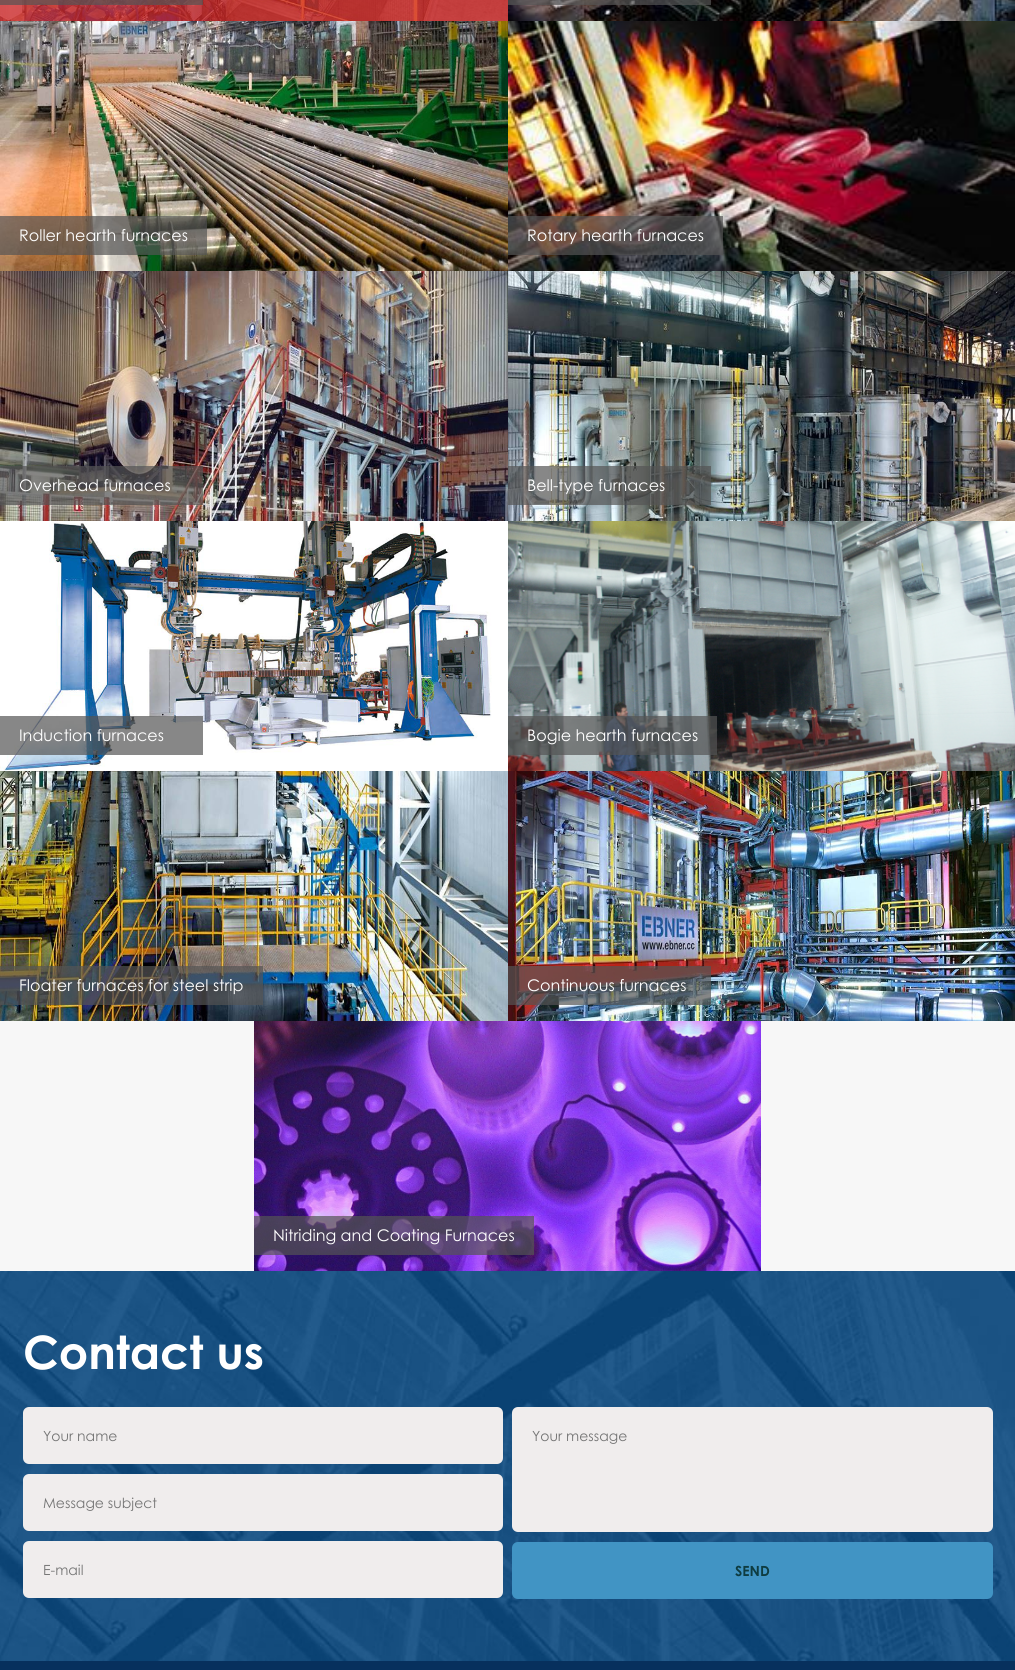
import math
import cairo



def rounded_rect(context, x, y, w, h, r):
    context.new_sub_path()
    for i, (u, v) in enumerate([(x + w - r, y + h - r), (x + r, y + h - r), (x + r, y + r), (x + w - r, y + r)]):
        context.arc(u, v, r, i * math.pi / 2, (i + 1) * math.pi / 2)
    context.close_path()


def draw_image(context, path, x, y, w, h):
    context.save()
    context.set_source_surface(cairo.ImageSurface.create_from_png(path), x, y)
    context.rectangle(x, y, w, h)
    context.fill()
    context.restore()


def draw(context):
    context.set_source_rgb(247 / 255, 247 / 255, 247 / 255)
    context.paint()
    draw_image(context, "images/1.png", 0, 0, 508, 21)
    context.set_source_rgba(85 / 255, 85 / 255, 85 / 255, 0.7)
    context.rectangle(0, 0, 203, 5)
    context.fill()
    draw_image(context, "images/2.png", 508, 0, 507, 21)
    context.rectangle(508, 0, 203, 5)
    context.fill()
    draw_image(context, "images/3.png", 0, 21, 508, 250)
    context.rectangle(0, 216, 207, 39)
    context.fill()
    draw_image(context, "images/4.png", 508, 21, 507, 250)
    context.rectangle(508, 216, 215, 39)
    context.fill()
    draw_image(context, "images/5.png", 0, 271, 508, 250)
    context.rectangle(0, 466, 203, 39)
    context.fill()
    draw_image(context, "images/6.png", 508, 271, 507, 250)
    context.rectangle(508, 466, 203, 39)
    context.fill()
    draw_image(context, "images/7.png", 0, 521, 508, 250)
    context.rectangle(0, 716, 203, 39)
    context.fill()
    draw_image(context, "images/8.png", 508, 521, 507, 250)
    context.rectangle(508, 716, 209, 39)
    context.fill()
    draw_image(context, "images/9.png", 0, 771, 508, 250)
    context.rectangle(0, 966, 263, 39)
    context.fill()
    draw_image(context, "images/10.png", 508, 771, 507, 250)
    context.rectangle(508, 966, 203, 39)
    context.fill()
    draw_image(context, "images/11.png", 254, 1021, 507, 250)
    context.rectangle(254, 1216, 280, 39)
    context.fill()
    draw_image(context, "images/12.png", 0, 1271, 1015, 390)
    context.set_source_rgb(240 / 255, 237 / 255, 237 / 255)
    rounded_rect(context, 23, 1407, 480, 57, 6)
    context.fill()
    rounded_rect(context, 23, 1474, 480, 57, 6)
    context.fill()
    rounded_rect(context, 23, 1541, 480, 57, 6)
    context.fill()
    rounded_rect(context, 512, 1407, 481, 125, 6)
    context.fill()
    context.set_source_rgb(65 / 255, 148 / 255, 196 / 255)
    rounded_rect(context, 512, 1542, 481, 57, 6)
    context.fill()
    context.set_source_rgb(7 / 255, 48 / 255, 93 / 255)
    context.rectangle(0, 1661, 1015, 9)
    context.fill()
    context.select_font_face("Century Gothic")
    context.set_font_size(16)
    context.set_source_rgb(1, 1, 1)
    context.move_to(19, 241)
    context.show_text("Roller hearth furnaces")
    context.move_to(527, 241)
    context.show_text("Rotary hearth furnaces")
    context.move_to(19, 491)
    context.show_text("Overhead furnaces")
    context.move_to(527, 491)
    context.show_text("Bell-type furnaces")
    context.move_to(19, 741)
    context.show_text("Induction furnaces")
    context.move_to(527, 741)
    context.show_text("Bogie hearth furnaces")
    context.move_to(19, 991)
    context.show_text("Floater furnaces for steel strip")
    context.move_to(527, 991)
    context.show_text("Continuous furnaces")
    context.move_to(273, 1241)
    context.show_text("Nitriding and Coating Furnaces")
    context.select_font_face("Century Gothic", cairo.FontSlant.NORMAL, cairo.FontWeight.BOLD)
    context.set_font_size(46)
    context.move_to(23, 1369)
    context.show_text("Contact us")
    context.select_font_face("Century Gothic")
    context.set_font_size(14)
    context.set_source_rgb(117 / 255, 117 / 255, 117 / 255)
    context.move_to(43, 1441)
    context.show_text("Your name")
    context.move_to(43, 1508)
    context.show_text("Message subject")
    context.move_to(43, 1575)
    context.show_text("E-mail")
    context.move_to(532, 1441)
    context.show_text("Your message")
    context.select_font_face("Century Gothic", cairo.FontSlant.NORMAL, cairo.FontWeight.BOLD)
    context.set_source_rgb(14 / 255, 60 / 255, 65 / 255)
    context.move_to(735, 1576)
    context.show_text("SEND")


surface = cairo.ImageSurface(cairo.Format.RGB24, 1015, 1670)
context = cairo.Context(surface)
options = cairo.FontOptions()
options.set_hint_metrics(cairo.HintMetrics.OFF)
options.set_hint_style(cairo.HintStyle.NONE)
context.set_font_options(options)
context.set_miter_limit(4)
draw(context)
surface.write_to_png("out.png")
